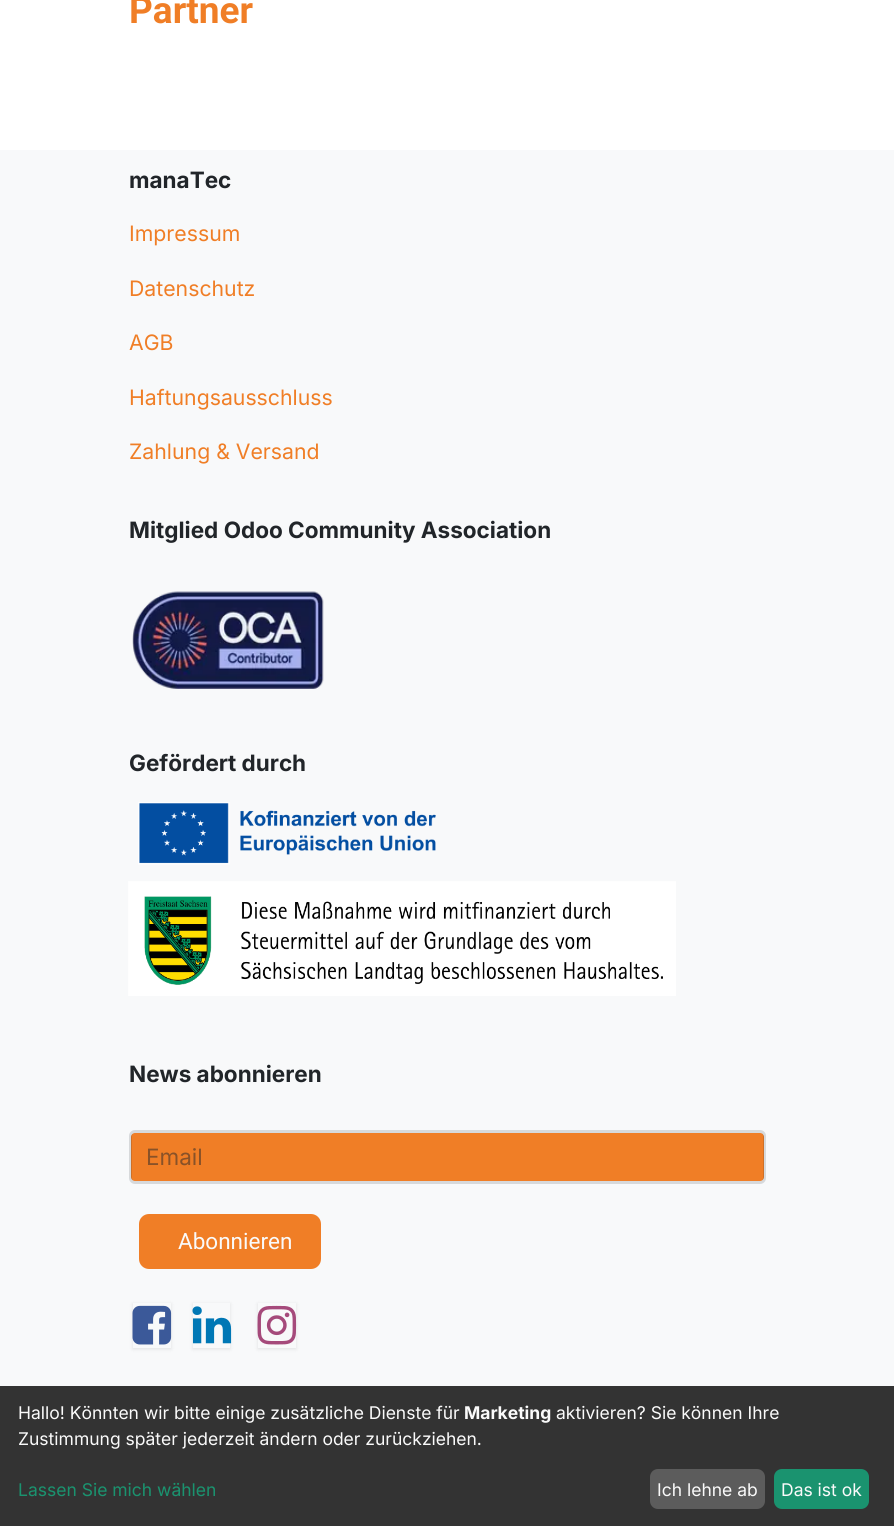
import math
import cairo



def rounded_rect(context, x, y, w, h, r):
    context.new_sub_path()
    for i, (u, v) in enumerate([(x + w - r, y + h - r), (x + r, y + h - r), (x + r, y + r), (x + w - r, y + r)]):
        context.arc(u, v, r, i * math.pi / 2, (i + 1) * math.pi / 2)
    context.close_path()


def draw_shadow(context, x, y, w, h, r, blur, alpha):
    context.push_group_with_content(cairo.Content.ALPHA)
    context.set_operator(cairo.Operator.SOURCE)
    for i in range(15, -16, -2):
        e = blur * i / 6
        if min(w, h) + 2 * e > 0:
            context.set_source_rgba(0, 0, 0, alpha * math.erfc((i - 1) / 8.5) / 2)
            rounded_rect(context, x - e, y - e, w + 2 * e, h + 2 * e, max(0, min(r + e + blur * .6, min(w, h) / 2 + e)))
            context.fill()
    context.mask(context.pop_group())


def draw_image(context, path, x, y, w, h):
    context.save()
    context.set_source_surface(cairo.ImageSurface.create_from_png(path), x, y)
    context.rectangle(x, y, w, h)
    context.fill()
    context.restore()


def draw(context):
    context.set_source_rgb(1, 1, 1)
    context.paint()
    context.set_source_rgb(248 / 255, 249 / 255, 250 / 255)
    context.rectangle(0, 150, 894, 1236)
    context.fill()
    draw_image(context, "images/1.png", 132, 591, 192, 98)
    draw_image(context, "images/2.png", 138, 802, 298, 63)
    draw_image(context, "images/3.png", 128, 881, 548, 115)
    context.set_source_rgb(240 / 255, 126 / 255, 38 / 255)
    rounded_rect(context, 131, 1133, 633, 48, 4)
    context.fill()
    rounded_rect(context, 130.5, 1131.5, 634, 51, 4.5)
    context.set_source_rgba(33 / 255, 37 / 255, 41 / 255, 0.15)
    context.set_line_width(3)
    context.stroke()
    context.set_source_rgb(240 / 255, 126 / 255, 38 / 255)
    rounded_rect(context, 139, 1214, 182, 55, 10)
    context.fill()
    context.save()
    context.set_fill_rule(cairo.FillRule.EVEN_ODD)
    context.new_path()
    context.move_to(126, 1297)
    context.line_to(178, 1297)
    context.line_to(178, 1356)
    context.line_to(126, 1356)
    context.close_path()
    context.move_to(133, 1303)
    context.line_to(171, 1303)
    context.line_to(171, 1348)
    context.line_to(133, 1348)
    context.close_path()
    context.clip()
    context.set_source_rgb(0, 0, 0)
    draw_shadow(context, 133, 1304, 38, 45, 0, 2, 0.1)
    context.restore()
    draw_image(context, "images/4.png", 132, 1305, 40, 40)
    context.save()
    context.set_fill_rule(cairo.FillRule.EVEN_ODD)
    context.new_path()
    context.move_to(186, 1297)
    context.line_to(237, 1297)
    context.line_to(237, 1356)
    context.line_to(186, 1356)
    context.close_path()
    context.move_to(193, 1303)
    context.line_to(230, 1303)
    context.line_to(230, 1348)
    context.line_to(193, 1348)
    context.close_path()
    context.clip()
    context.set_source_rgb(0, 0, 0)
    draw_shadow(context, 193, 1304, 37, 45, 0, 2, 0.1)
    context.restore()
    draw_image(context, "images/5.png", 192, 1306, 40, 38)
    context.save()
    context.set_fill_rule(cairo.FillRule.EVEN_ODD)
    context.new_path()
    context.move_to(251, 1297)
    context.line_to(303, 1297)
    context.line_to(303, 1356)
    context.line_to(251, 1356)
    context.close_path()
    context.move_to(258, 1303)
    context.line_to(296, 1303)
    context.line_to(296, 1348)
    context.line_to(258, 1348)
    context.close_path()
    context.clip()
    context.set_source_rgb(0, 0, 0)
    draw_shadow(context, 258, 1304, 38, 45, 0, 2, 0.1)
    context.restore()
    draw_image(context, "images/6.png", 257, 1305, 40, 40)
    context.set_source_rgb(51 / 255, 51 / 255, 51 / 255)
    context.rectangle(0, 1386, 894, 140)
    context.fill()
    context.set_source_rgb(92 / 255, 92 / 255, 92 / 255)
    rounded_rect(context, 650, 1469, 115, 40, 8)
    context.fill()
    context.set_source_rgb(26 / 255, 147 / 255, 111 / 255)
    rounded_rect(context, 774, 1469, 95, 40, 8)
    context.fill()
    context.select_font_face("Roboto", cairo.FontSlant.NORMAL, cairo.FontWeight.BOLD)
    context.set_font_size(37)
    context.set_source_rgb(240 / 255, 126 / 255, 38 / 255)
    context.move_to(129, 23)
    context.show_text("Partner")
    context.select_font_face("Inter", cairo.FontSlant.NORMAL, cairo.FontWeight.BOLD)
    context.set_font_size(22.5)
    context.set_source_rgb(33 / 255, 37 / 255, 41 / 255)
    context.move_to(129, 188)
    context.show_text("manaTec")
    context.select_font_face("Inter")
    context.set_font_size(21.25)
    context.set_source_rgb(240 / 255, 126 / 255, 38 / 255)
    context.move_to(129, 241)
    context.show_text("Impressum")
    context.move_to(129, 296)
    context.show_text("Datenschutz")
    context.move_to(129, 350)
    context.show_text("AGB")
    context.move_to(129, 405)
    context.show_text("Haftungsausschluss")
    context.move_to(129, 459)
    context.show_text("Zahlung & Versand")
    context.select_font_face("Inter", cairo.FontSlant.NORMAL, cairo.FontWeight.BOLD)
    context.set_font_size(22.5)
    context.set_source_rgb(33 / 255, 37 / 255, 41 / 255)
    context.move_to(129, 538)
    context.show_text("Mitglied Odoo Community Association")
    context.move_to(129, 771)
    context.show_text("Gefördert durch")
    context.move_to(129, 1082)
    context.show_text("News abonnieren")
    context.select_font_face("Inter")
    context.set_source_rgb(137 / 255, 82 / 255, 40 / 255)
    context.move_to(146, 1165)
    context.show_text("Email")
    context.select_font_face("Roboto")
    context.set_source_rgb(250 / 255, 250 / 255, 250 / 255)
    context.move_to(178, 1249)
    context.show_text("Abonnieren")
    context.select_font_face("Inter")
    context.set_font_size(17.5)
    context.move_to(18, 1419)
    context.show_text("Hallo! Könnten wir bitte einige zusätzliche Dienste für")
    context.select_font_face("Inter", cairo.FontSlant.NORMAL, cairo.FontWeight.BOLD)
    context.move_to(464, 1419)
    context.show_text("Marketing")
    context.select_font_face("Inter")
    context.move_to(556, 1419)
    context.show_text("aktivieren? Sie können Ihre")
    context.move_to(18, 1445)
    context.show_text("Zustimmung später jederzeit ändern oder zurückziehen.")
    context.set_source_rgb(26 / 255, 147 / 255, 111 / 255)
    context.move_to(18, 1496)
    context.show_text("Lassen Sie mich wählen")
    context.set_source_rgb(250 / 255, 250 / 255, 250 / 255)
    context.move_to(657, 1496)
    context.show_text("Ich lehne ab")
    context.move_to(781, 1496)
    context.show_text("Das ist ok")


surface = cairo.ImageSurface(cairo.Format.RGB24, 894, 1526)
context = cairo.Context(surface)
options = cairo.FontOptions()
options.set_hint_metrics(cairo.HintMetrics.OFF)
options.set_hint_style(cairo.HintStyle.NONE)
context.set_font_options(options)
context.set_miter_limit(4)
draw(context)
surface.write_to_png("out.png")
